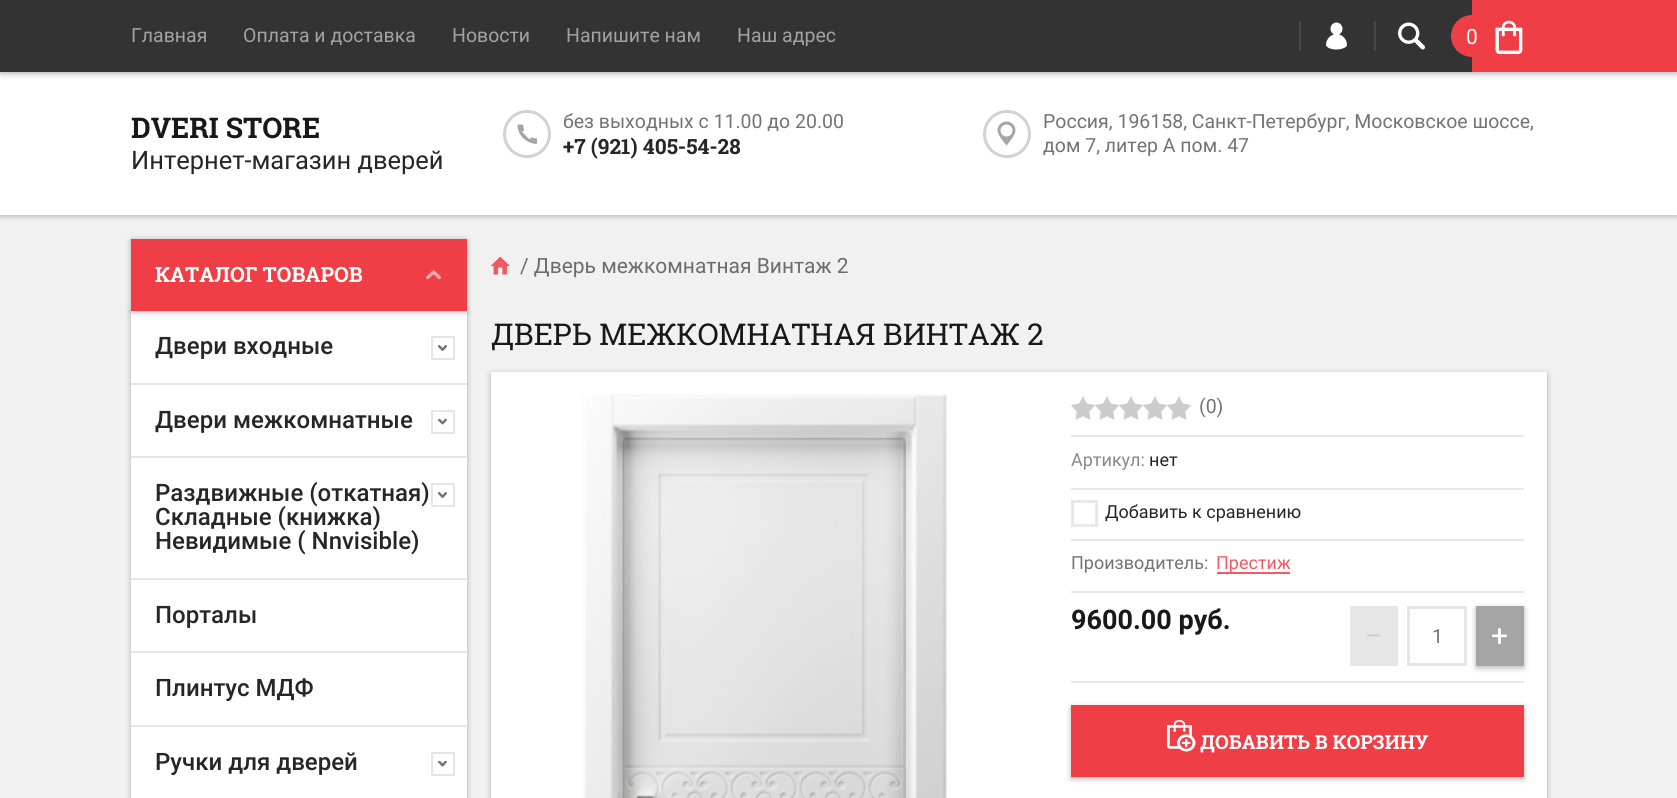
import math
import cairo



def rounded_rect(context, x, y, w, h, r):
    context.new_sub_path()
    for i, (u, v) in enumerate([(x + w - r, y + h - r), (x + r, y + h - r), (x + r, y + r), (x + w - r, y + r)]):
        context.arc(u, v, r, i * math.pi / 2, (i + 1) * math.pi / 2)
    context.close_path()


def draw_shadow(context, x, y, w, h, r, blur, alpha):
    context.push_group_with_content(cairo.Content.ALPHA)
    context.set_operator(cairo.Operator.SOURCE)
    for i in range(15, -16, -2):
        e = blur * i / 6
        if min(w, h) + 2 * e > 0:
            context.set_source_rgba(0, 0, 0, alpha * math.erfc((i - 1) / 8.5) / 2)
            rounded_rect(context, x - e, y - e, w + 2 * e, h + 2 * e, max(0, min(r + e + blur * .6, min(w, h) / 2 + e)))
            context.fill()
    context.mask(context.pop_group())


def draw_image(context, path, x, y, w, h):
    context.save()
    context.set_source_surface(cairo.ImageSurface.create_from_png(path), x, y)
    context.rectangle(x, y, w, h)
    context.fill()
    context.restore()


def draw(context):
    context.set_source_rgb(241 / 255, 241 / 255, 241 / 255)
    context.paint()
    context.set_source_rgb(0, 0, 0)
    draw_shadow(context, 0, 74, 1677, 142, 0, 3, 0.28)
    context.set_source_rgb(1, 1, 1)
    context.rectangle(0, 72, 1677, 143)
    context.fill()
    context.set_source_rgb(0, 0, 0)
    draw_shadow(context, 0, 2, 1677, 72, 0, 3, 0.28)
    context.set_source_rgb(51 / 255, 51 / 255, 51 / 255)
    context.rectangle(0, 0, 1472, 72)
    context.fill()
    context.set_source_rgb(71 / 255, 71 / 255, 71 / 255)
    context.rectangle(1299, 21, 2, 30)
    context.fill()
    draw_image(context, "images/1.png", 1326, 22, 21, 28)
    context.rectangle(1374, 21, 2, 30)
    context.fill()
    draw_image(context, "images/2.png", 1398, 22, 27, 28)
    context.set_source_rgb(239 / 255, 62 / 255, 70 / 255)
    context.rectangle(1472, 0, 205, 72)
    context.fill()
    context.arc(1472, 36, 21, 0, 2 * math.pi)
    context.fill()
    draw_image(context, "images/3.png", 1495, 20, 28, 34)
    context.arc(527, 134, 22.5, 0, 2 * math.pi)
    context.set_source_rgb(210 / 255, 210 / 255, 210 / 255)
    context.set_line_width(3)
    context.stroke()
    draw_image(context, "images/4.png", 517, 124, 20, 20)
    context.arc(1007, 134, 22.5, 0, 2 * math.pi)
    context.stroke()
    draw_image(context, "images/5.png", 997, 121, 19, 25)
    context.set_source_rgb(0, 0, 0)
    draw_shadow(context, 131, 312, 336, 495, 0, 3, 0.28)
    context.set_source_rgb(1, 1, 1)
    context.rectangle(131, 311, 336, 487)
    context.fill()
    context.set_source_rgb(0, 0, 0)
    draw_shadow(context, 131, 240, 336, 72, 0, 3, 0.28)
    context.set_source_rgb(239 / 255, 62 / 255, 70 / 255)
    context.rectangle(131, 239, 336, 72)
    context.fill()
    draw_image(context, "images/6.png", 426, 270, 16, 10)
    context.rectangle(432, 337, 22, 22)
    context.set_source_rgb(230 / 255, 230 / 255, 230 / 255)
    context.set_line_width(2)
    context.stroke()
    draw_image(context, "images/7.png", 438, 345, 9, 6)
    context.rectangle(131, 383, 336, 2)
    context.fill()
    context.rectangle(432, 411, 22, 22)
    context.stroke()
    draw_image(context, "images/8.png", 438, 419, 9, 6)
    context.rectangle(131, 456, 336, 2)
    context.fill()
    context.rectangle(432, 484, 22, 22)
    context.stroke()
    draw_image(context, "images/7.png", 438, 492, 9, 6)
    context.rectangle(131, 578, 336, 2)
    context.fill()
    context.rectangle(131, 651, 336, 2)
    context.fill()
    context.rectangle(131, 725, 336, 2)
    context.fill()
    context.rectangle(432, 753, 22, 22)
    context.stroke()
    draw_image(context, "images/8.png", 438, 761, 9, 6)
    draw_image(context, "images/9.png", 491, 257, 19, 18)
    context.set_source_rgb(0, 0, 0)
    draw_shadow(context, 491, 374, 1056, 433, 0, 3, 0.28)
    context.set_source_rgb(1, 1, 1)
    context.rectangle(491, 372, 1056, 426)
    context.fill()
    draw_image(context, "images/10.png", 582, 394, 365, 404)
    draw_image(context, "images/11.png", 1071, 396, 120, 24)
    context.set_source_rgb(233 / 255, 233 / 255, 233 / 255)
    context.rectangle(1071, 435, 453, 2)
    context.fill()
    context.rectangle(1071, 488, 453, 2)
    context.fill()
    context.rectangle(1072.5, 501.5, 24, 24)
    context.set_line_width(3)
    context.stroke()
    context.set_source_rgb(230 / 255, 230 / 255, 230 / 255)
    context.rectangle(1071, 539, 453, 2)
    context.fill()
    context.set_source_rgb(241 / 255, 91 / 255, 98 / 255)
    context.rectangle(1217, 572, 73, 2)
    context.fill()
    context.set_source_rgb(230 / 255, 230 / 255, 230 / 255)
    context.rectangle(1071, 591, 453, 2)
    context.fill()
    context.rectangle(1350, 606, 48, 60)
    context.fill()
    context.rectangle(1408.5, 607.5, 57, 57)
    context.stroke()
    context.set_source_rgb(0, 0, 0)
    draw_shadow(context, 1476, 608, 48, 60, 0, 3, 0.28)
    context.set_source_rgb(165 / 255, 165 / 255, 165 / 255)
    context.rectangle(1476, 606, 48, 60)
    context.fill()
    context.set_source_rgb(230 / 255, 230 / 255, 230 / 255)
    context.rectangle(1071, 681, 453, 2)
    context.fill()
    context.set_source_rgb(0, 0, 0)
    draw_shadow(context, 1071, 707, 453, 72, 0, 3, 0.28)
    context.set_source_rgb(239 / 255, 62 / 255, 70 / 255)
    context.rectangle(1071, 705, 453, 72)
    context.fill()
    draw_image(context, "images/12.png", 1167, 720, 29, 32)
    context.select_font_face("Roboto")
    context.set_font_size(19.5)
    context.set_source_rgb(163 / 255, 163 / 255, 163 / 255)
    context.move_to(131, 42)
    context.show_text("Главная")
    context.move_to(243, 42)
    context.show_text("Оплата и доставка")
    context.move_to(452, 42)
    context.show_text("Новости")
    context.move_to(566, 42)
    context.show_text("Напишите нам")
    context.move_to(737, 42)
    context.show_text("Наш адрес")
    context.set_font_size(21)
    context.set_source_rgb(1, 1, 1)
    context.move_to(1466, 44)
    context.show_text("0")
    context.select_font_face("Roboto Slab", cairo.FontSlant.NORMAL, cairo.FontWeight.BOLD)
    context.set_font_size(28.5)
    context.set_source_rgb(24 / 255, 24 / 255, 24 / 255)
    context.move_to(131, 138)
    context.show_text("DVERI STORE")
    context.select_font_face("Roboto")
    context.set_font_size(25.5)
    context.set_source_rgb(38 / 255, 38 / 255, 38 / 255)
    context.move_to(131, 169)
    context.show_text("Интернет-магазин дверей")
    context.set_font_size(19.5)
    context.set_source_rgb(115 / 255, 115 / 255, 115 / 255)
    context.move_to(563, 128)
    context.show_text("без выходных c 11.00 до 20.00")
    context.select_font_face("Roboto Slab", cairo.FontSlant.NORMAL, cairo.FontWeight.BOLD)
    context.set_font_size(21)
    context.set_source_rgb(38 / 255, 38 / 255, 38 / 255)
    context.move_to(563, 154)
    context.show_text("+7 (921) 405-54-28")
    context.select_font_face("Roboto")
    context.set_font_size(19.5)
    context.set_source_rgb(115 / 255, 115 / 255, 115 / 255)
    context.move_to(1043, 128)
    context.show_text("Россия, 196158, Санкт-Петербург, Московское шоссе,")
    context.move_to(1043, 152)
    context.show_text("дом 7, литер А пом. 47")
    context.select_font_face("Roboto Slab", cairo.FontSlant.NORMAL, cairo.FontWeight.BOLD)
    context.set_font_size(21)
    context.set_source_rgb(1, 1, 1)
    context.move_to(155, 282)
    context.show_text("КАТАЛОГ ТОВАРОВ")
    context.select_font_face("Roboto Medium")
    context.set_font_size(24)
    context.set_source_rgb(38 / 255, 38 / 255, 38 / 255)
    context.move_to(155, 354)
    context.show_text("Двери входные")
    context.move_to(155, 428)
    context.show_text("Двери межкомнатные")
    context.move_to(155, 501)
    context.show_text("Раздвижные (откатная)")
    context.move_to(155, 525)
    context.show_text("Складные (книжка)")
    context.move_to(155, 549)
    context.show_text("Невидимые ( Nnvisible)")
    context.move_to(155, 623)
    context.show_text("Порталы")
    context.move_to(155, 696)
    context.show_text("Плинтус МДФ")
    context.move_to(155, 770)
    context.show_text("Ручки для дверей")
    context.select_font_face("Roboto")
    context.set_font_size(21)
    context.set_source_rgb(108 / 255, 108 / 255, 108 / 255)
    context.move_to(520, 273)
    context.show_text("/ Дверь межкомнатная Винтаж 2")
    context.select_font_face("Roboto Slab")
    context.set_font_size(30)
    context.set_source_rgb(24 / 255, 24 / 255, 24 / 255)
    context.move_to(491, 345)
    context.show_text("ДВЕРЬ МЕЖКОМНАТНАЯ ВИНТАЖ 2")
    context.select_font_face("Roboto")
    context.set_font_size(19.5)
    context.set_source_rgb(115 / 255, 115 / 255, 115 / 255)
    context.move_to(1199, 413)
    context.show_text("(0)")
    context.set_font_size(18)
    context.set_source_rgb(136 / 255, 136 / 255, 136 / 255)
    context.move_to(1071, 466)
    context.show_text("Артикул:")
    context.set_source_rgb(38 / 255, 38 / 255, 38 / 255)
    context.move_to(1149, 466)
    context.show_text("нет")
    context.move_to(1105, 518)
    context.show_text("Добавить к сравнению")
    context.set_source_rgb(115 / 255, 115 / 255, 115 / 255)
    context.move_to(1071, 569)
    context.show_text("Производитель:")
    context.set_source_rgb(241 / 255, 91 / 255, 98 / 255)
    context.move_to(1216, 569)
    context.show_text("Престиж")
    context.select_font_face("Roboto", cairo.FontSlant.NORMAL, cairo.FontWeight.BOLD)
    context.set_font_size(27)
    context.set_source_rgb(24 / 255, 24 / 255, 24 / 255)
    context.move_to(1071, 629)
    context.show_text("9600.00 руб.")
    context.select_font_face("Roboto")
    context.set_font_size(30)
    context.set_source_rgb(207 / 255, 207 / 255, 207 / 255)
    context.move_to(1365, 646)
    context.show_text("−")
    context.set_font_size(19.5)
    context.set_source_rgb(115 / 255, 115 / 255, 115 / 255)
    context.move_to(1432, 643)
    context.show_text("1")
    context.set_font_size(30)
    context.set_source_rgb(1, 1, 1)
    context.move_to(1491, 646)
    context.show_text("+")
    context.select_font_face("Roboto Slab", cairo.FontSlant.NORMAL, cairo.FontWeight.BOLD)
    context.set_font_size(19.5)
    context.move_to(1200, 749)
    context.show_text("ДОБАВИТЬ В КОРЗИНУ")


surface = cairo.ImageSurface(cairo.Format.RGB24, 1677, 798)
context = cairo.Context(surface)
options = cairo.FontOptions()
options.set_hint_metrics(cairo.HintMetrics.OFF)
options.set_hint_style(cairo.HintStyle.NONE)
context.set_font_options(options)
context.set_miter_limit(4)
draw(context)
surface.write_to_png("out.png")
